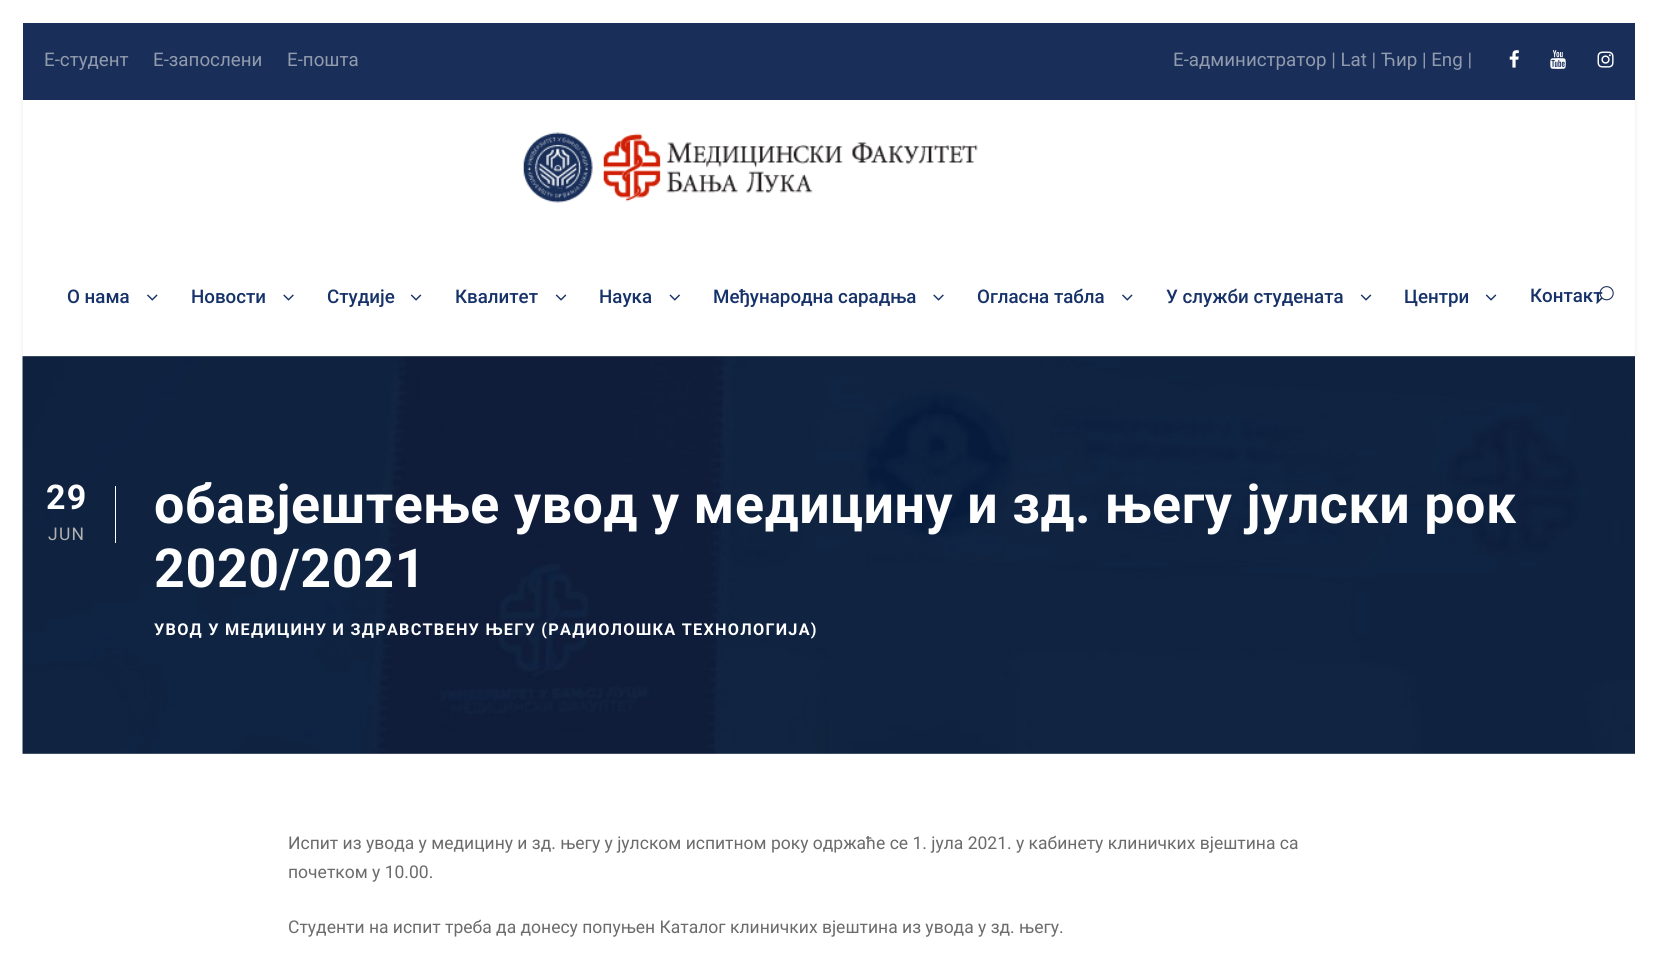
import math
import cairo



def draw_spaced(context, x, y, s, letter, word):
    context.move_to(x, y)
    for ch in s:
        context.show_text(ch)
        context.rel_move_to(letter + word * (ch == ' '), 0)


def rounded_rect(context, x, y, w, h, r):
    context.new_sub_path()
    for i, (u, v) in enumerate([(x + w - r, y + h - r), (x + r, y + h - r), (x + r, y + r), (x + w - r, y + r)]):
        context.arc(u, v, r, i * math.pi / 2, (i + 1) * math.pi / 2)
    context.close_path()


def draw_shadow(context, x, y, w, h, r, blur, alpha):
    context.push_group_with_content(cairo.Content.ALPHA)
    context.set_operator(cairo.Operator.SOURCE)
    for i in range(15, -16, -2):
        e = blur * i / 6
        if min(w, h) + 2 * e > 0:
            context.set_source_rgba(0, 0, 0, alpha * math.erfc((i - 1) / 8.5) / 2)
            rounded_rect(context, x - e, y - e, w + 2 * e, h + 2 * e, max(0, min(r + e + blur * .6, min(w, h) / 2 + e)))
            context.fill()
    context.mask(context.pop_group())


def draw_image(context, path, x, y, w, h):
    context.save()
    context.set_source_surface(cairo.ImageSurface.create_from_png(path), x, y)
    context.rectangle(x, y, w, h)
    context.fill()
    context.restore()


def draw(context):
    context.set_source_rgb(1, 1, 1)
    context.paint()
    context.set_source_rgb(25 / 255, 47 / 255, 89 / 255)
    context.rectangle(23, 23, 1612, 77)
    context.fill()
    draw_image(context, "images/1.png", 1509, 50, 10, 18)
    draw_image(context, "images/2.png", 1550, 50, 16, 19)
    draw_image(context, "images/3.png", 1597, 51, 17, 17)
    context.save()
    context.set_fill_rule(cairo.FillRule.EVEN_ODD)
    context.new_path()
    context.move_to(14, 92)
    context.line_to(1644, 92)
    context.line_to(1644, 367)
    context.line_to(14, 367)
    context.close_path()
    context.move_to(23, 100)
    context.line_to(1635, 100)
    context.line_to(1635, 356)
    context.line_to(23, 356)
    context.close_path()
    context.clip()
    context.set_source_rgb(0, 0, 0)
    draw_shadow(context, 23, 101, 1612, 257, 0, 2.5, 0.1)
    context.restore()
    draw_image(context, "images/4.png", 523, 132, 455, 71)
    draw_image(context, "images/5.png", 147, 294, 11, 7)
    draw_image(context, "images/6.png", 283, 294, 11, 7)
    draw_image(context, "images/7.png", 410, 294, 12, 7)
    draw_image(context, "images/7.png", 555, 294, 12, 7)
    draw_image(context, "images/8.png", 669, 294, 11, 7)
    draw_image(context, "images/6.png", 933, 294, 11, 7)
    draw_image(context, "images/5.png", 1122, 294, 11, 7)
    draw_image(context, "images/7.png", 1360, 294, 12, 7)
    draw_image(context, "images/7.png", 1485, 294, 12, 7)
    draw_image(context, "images/9.png", 1596, 286, 18, 18)
    draw_image(context, "images/10.png", 22, 356, 1613, 398)
    context.set_source_rgba(0, 0, 0, 0.19)
    context.rectangle(23, 356, 1612, 398)
    context.fill()
    context.set_source_rgb(1, 1, 1)
    context.rectangle(115, 486, 1, 57)
    context.fill()
    context.select_font_face("Roboto")
    context.set_font_size(18.75)
    context.set_source_rgb(145 / 255, 155 / 255, 173 / 255)
    context.move_to(44, 66)
    context.show_text("Е-студент")
    context.move_to(153, 66)
    context.show_text("Е-запослени")
    context.move_to(287, 66)
    context.show_text("Е-пошта")
    context.move_to(1173, 66)
    context.show_text("E-администратор | Lat | Ћир | Eng |")
    context.select_font_face("Roboto Medium")
    context.set_source_rgb(22 / 255, 50 / 255, 105 / 255)
    context.move_to(67, 303)
    context.show_text("О нама")
    context.move_to(191, 303)
    context.show_text("Новости")
    context.move_to(327, 303)
    context.show_text("Студије")
    context.move_to(455, 303)
    context.show_text("Квалитет")
    context.move_to(599, 303)
    context.show_text("Наука")
    context.move_to(713, 303)
    context.show_text("Међународна сарадња")
    context.move_to(977, 303)
    context.show_text("Огласна табла")
    context.move_to(1166, 303)
    context.show_text("У служби студената")
    context.move_to(1404, 303)
    context.show_text("Центри")
    context.move_to(1530, 302)
    context.show_text("Контакт")
    context.select_font_face("Roboto", cairo.FontSlant.NORMAL, cairo.FontWeight.BOLD)
    context.set_font_size(34)
    context.set_source_rgb(1, 1, 1)
    draw_spaced(context, 46, 509, "29", 1.25, 0)
    context.select_font_face("Roboto")
    context.set_font_size(17.5)
    context.set_source_rgb(177 / 255, 177 / 255, 177 / 255)
    draw_spaced(context, 48, 540, "JUN", 1.25, 0)
    context.select_font_face("Roboto", cairo.FontSlant.NORMAL, cairo.FontWeight.BOLD)
    context.set_font_size(53.75)
    context.set_source_rgb(1, 1, 1)
    draw_spaced(context, 154, 523, "обавјештење увод у медицину и зд. његу јулски рок", 0.6, 0)
    draw_spaced(context, 154, 587, "2020/2021", 0.6, 0)
    context.set_font_size(16.25)
    draw_spaced(context, 154, 635, "УВОД У МЕДИЦИНУ И ЗДРАВСТВЕНУ ЊЕГУ (РАДИОЛОШКА ТЕХНОЛОГИЈА)", 1.25, 0)
    context.select_font_face("Roboto")
    context.set_font_size(17.5)
    context.set_source_rgb(107 / 255, 107 / 255, 107 / 255)
    context.move_to(288, 849)
    context.show_text("Испит из увода у медицину и зд. његу у јулском испитном року одржаће се 1. јула 2021. у кабинету клиничких вјештина са")
    context.move_to(288, 878)
    context.show_text("почетком у 10.00.")
    context.move_to(288, 933)
    context.show_text("Студенти на испит треба да донесу попуњен Каталог клиничких вјештина из увода у зд. његу.")


surface = cairo.ImageSurface(cairo.Format.RGB24, 1657, 972)
context = cairo.Context(surface)
options = cairo.FontOptions()
options.set_hint_metrics(cairo.HintMetrics.OFF)
options.set_hint_style(cairo.HintStyle.NONE)
context.set_font_options(options)
context.set_miter_limit(4)
draw(context)
surface.write_to_png("out.png")
